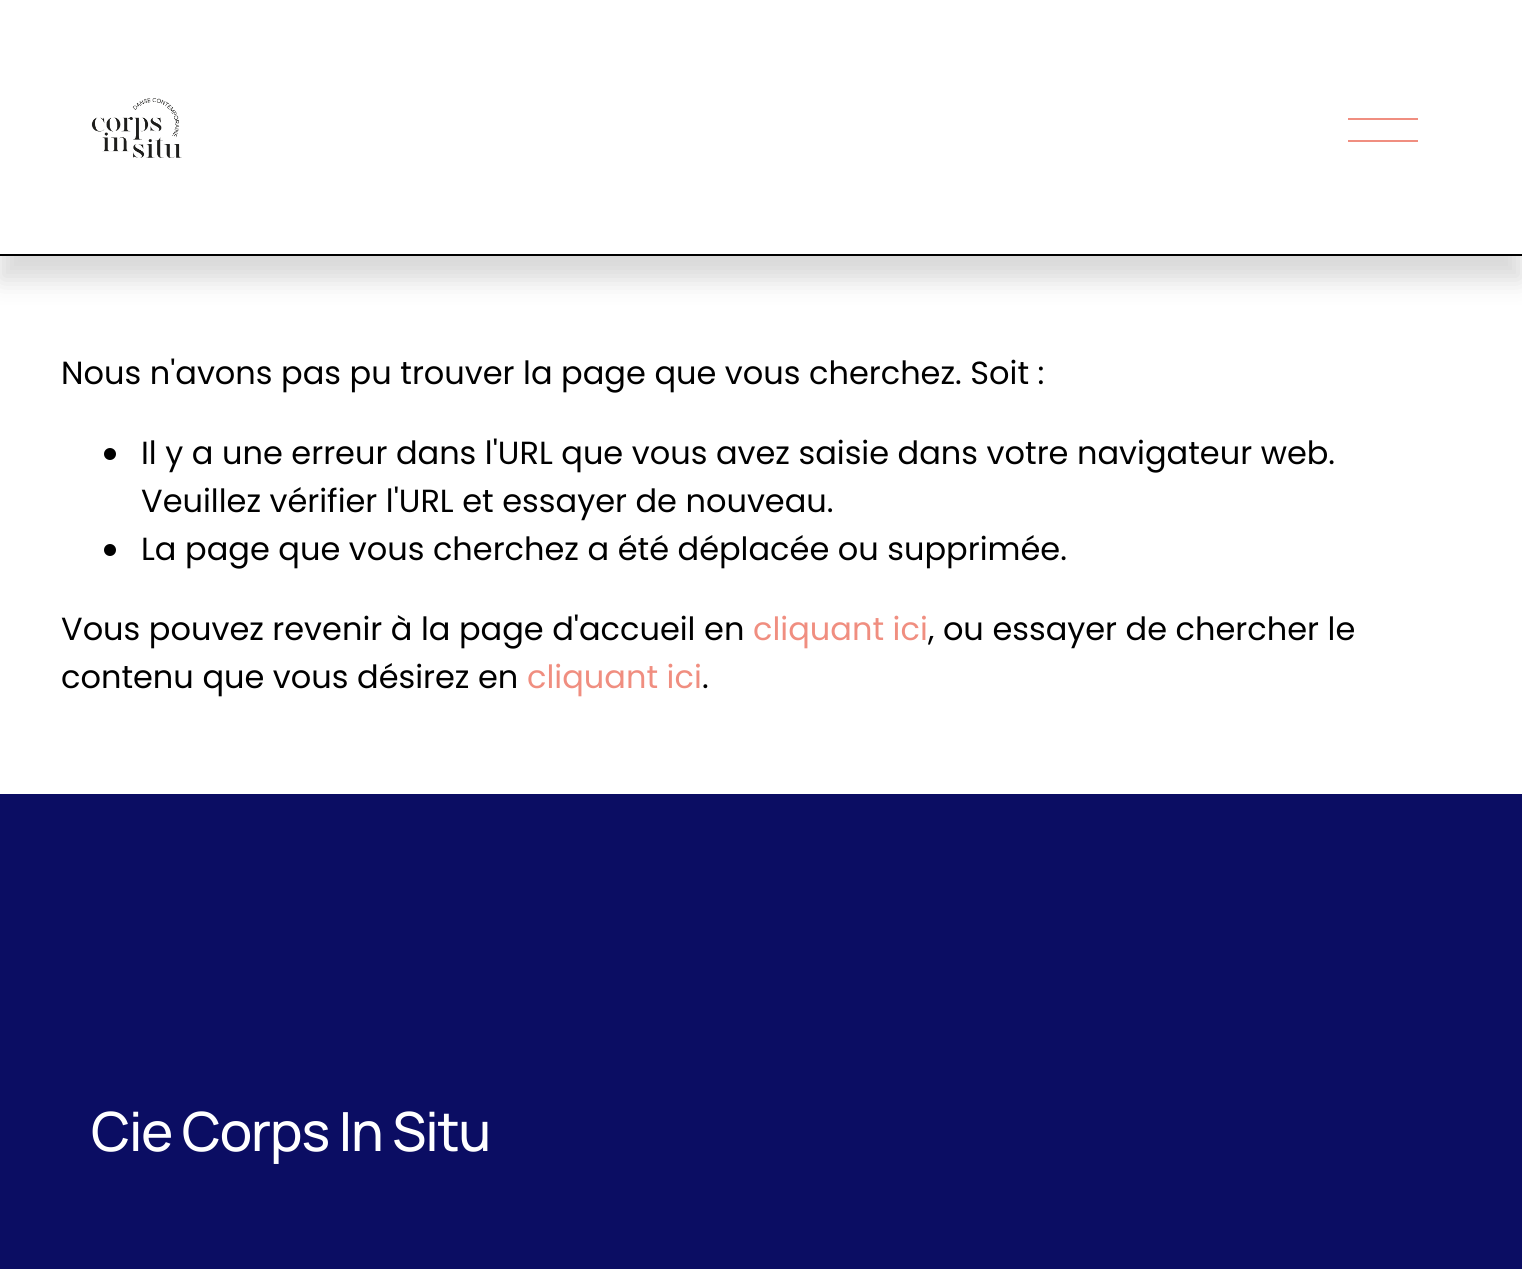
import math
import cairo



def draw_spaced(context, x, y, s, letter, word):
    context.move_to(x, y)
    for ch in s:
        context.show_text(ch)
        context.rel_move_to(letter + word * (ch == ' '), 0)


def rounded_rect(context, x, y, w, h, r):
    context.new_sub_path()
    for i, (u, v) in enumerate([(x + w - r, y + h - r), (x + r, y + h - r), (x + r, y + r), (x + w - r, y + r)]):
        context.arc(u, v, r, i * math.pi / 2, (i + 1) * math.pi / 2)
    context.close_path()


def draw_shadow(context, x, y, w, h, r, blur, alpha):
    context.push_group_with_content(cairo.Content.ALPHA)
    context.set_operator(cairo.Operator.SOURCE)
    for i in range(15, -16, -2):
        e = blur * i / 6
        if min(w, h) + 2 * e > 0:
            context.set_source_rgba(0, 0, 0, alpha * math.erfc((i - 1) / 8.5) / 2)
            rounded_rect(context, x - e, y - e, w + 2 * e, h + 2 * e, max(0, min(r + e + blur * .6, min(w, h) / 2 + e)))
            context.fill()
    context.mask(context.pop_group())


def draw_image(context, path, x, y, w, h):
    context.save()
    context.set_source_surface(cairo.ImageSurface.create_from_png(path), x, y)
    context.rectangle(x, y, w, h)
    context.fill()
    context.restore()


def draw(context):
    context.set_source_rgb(1, 1, 1)
    context.paint()
    context.save()
    context.rectangle(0, 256, 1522, 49)
    context.clip()
    context.set_source_rgb(217 / 255, 217 / 255, 217 / 255)
    draw_shadow(context, 0, 24, 1522, 256, 0, 12, 1)
    context.restore()
    draw_image(context, "images/1.png", 91, 98, 91, 60)
    context.set_source_rgb(240 / 255, 142 / 255, 128 / 255)
    context.rectangle(1348, 118, 70, 2)
    context.fill()
    context.rectangle(1348, 140, 70, 2)
    context.fill()
    context.set_source_rgb(0, 0, 0)
    context.rectangle(0, 254, 1522, 2)
    context.fill()
    context.arc(110, 454, 6, 0, 2 * math.pi)
    context.fill()
    context.arc(110, 550, 6, 0, 2 * math.pi)
    context.fill()
    context.set_source_rgb(11 / 255, 13 / 255, 99 / 255)
    context.rectangle(0, 794, 1522, 475)
    context.fill()
    context.select_font_face("Poppins")
    context.set_font_size(32)
    context.set_source_rgb(0, 0, 0)
    context.move_to(61, 384)
    context.show_text("Nous n'avons pas pu trouver la page que vous cherchez. Soit :")
    context.move_to(141, 464)
    context.show_text("Il y a une erreur dans l'URL que vous avez saisie dans votre navigateur web.")
    context.move_to(141, 512)
    context.show_text("Veuillez vérifier l'URL et essayer de nouveau.")
    context.move_to(141, 560)
    context.show_text("La page que vous cherchez a été déplacée ou supprimée.")
    context.move_to(61, 640)
    context.show_text("Vous pouvez revenir à la page d'accueil en")
    context.set_source_rgb(240 / 255, 142 / 255, 128 / 255)
    context.move_to(753, 640)
    context.show_text("cliquant ici")
    context.set_source_rgb(0, 0, 0)
    context.move_to(928, 640)
    context.show_text(", ou essayer de chercher le")
    context.move_to(61, 688)
    context.show_text("contenu que vous désirez en")
    context.set_source_rgb(240 / 255, 142 / 255, 128 / 255)
    context.move_to(527, 688)
    context.show_text("cliquant ici")
    context.set_source_rgb(0, 0, 0)
    context.move_to(702, 688)
    context.show_text(".")
    context.select_font_face("Manrope Medium")
    context.set_font_size(54)
    context.set_source_rgb(1, 1, 1)
    draw_spaced(context, 91, 1151, "Cie Corps In Situ", -1.1, 0)


surface = cairo.ImageSurface(cairo.Format.RGB24, 1522, 1269)
context = cairo.Context(surface)
options = cairo.FontOptions()
options.set_hint_metrics(cairo.HintMetrics.OFF)
options.set_hint_style(cairo.HintStyle.NONE)
context.set_font_options(options)
context.set_miter_limit(4)
draw(context)
surface.write_to_png("out.png")
